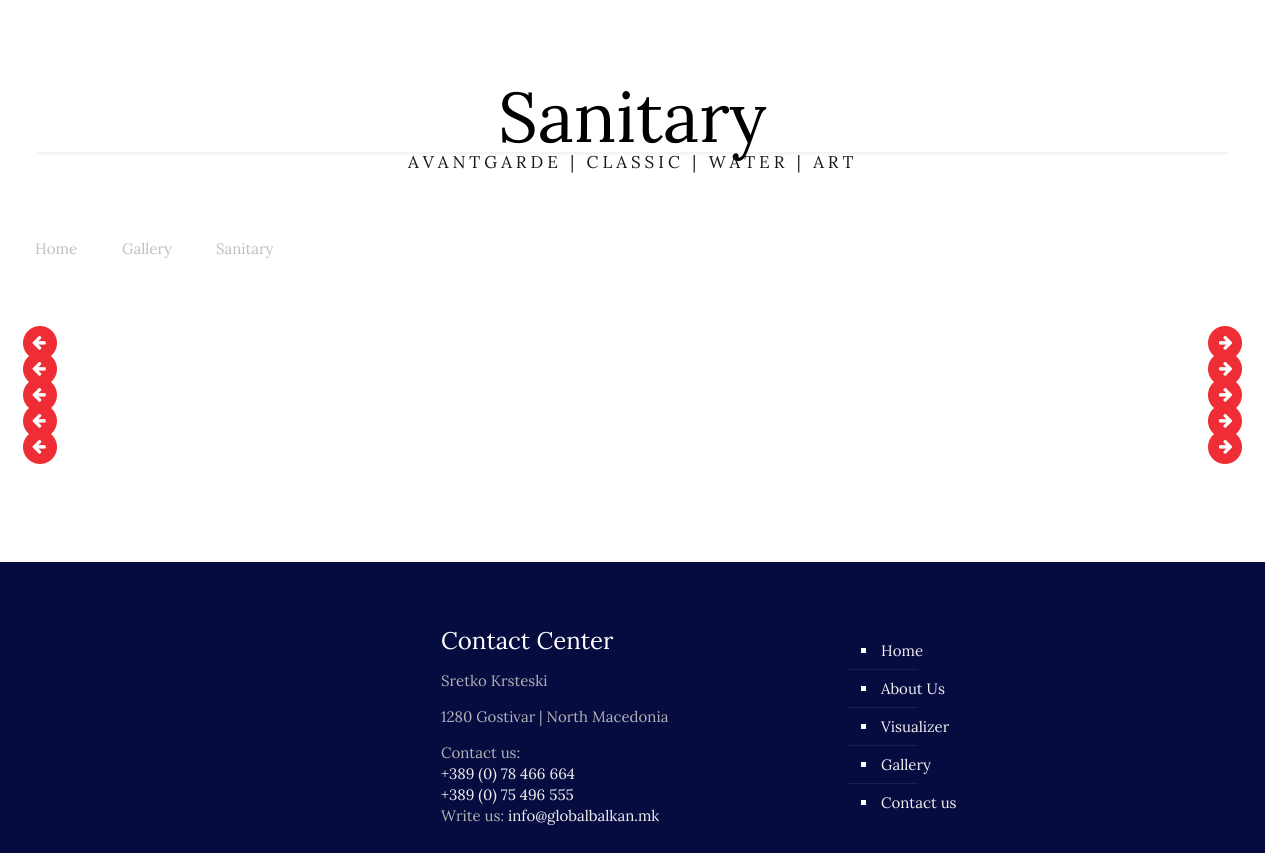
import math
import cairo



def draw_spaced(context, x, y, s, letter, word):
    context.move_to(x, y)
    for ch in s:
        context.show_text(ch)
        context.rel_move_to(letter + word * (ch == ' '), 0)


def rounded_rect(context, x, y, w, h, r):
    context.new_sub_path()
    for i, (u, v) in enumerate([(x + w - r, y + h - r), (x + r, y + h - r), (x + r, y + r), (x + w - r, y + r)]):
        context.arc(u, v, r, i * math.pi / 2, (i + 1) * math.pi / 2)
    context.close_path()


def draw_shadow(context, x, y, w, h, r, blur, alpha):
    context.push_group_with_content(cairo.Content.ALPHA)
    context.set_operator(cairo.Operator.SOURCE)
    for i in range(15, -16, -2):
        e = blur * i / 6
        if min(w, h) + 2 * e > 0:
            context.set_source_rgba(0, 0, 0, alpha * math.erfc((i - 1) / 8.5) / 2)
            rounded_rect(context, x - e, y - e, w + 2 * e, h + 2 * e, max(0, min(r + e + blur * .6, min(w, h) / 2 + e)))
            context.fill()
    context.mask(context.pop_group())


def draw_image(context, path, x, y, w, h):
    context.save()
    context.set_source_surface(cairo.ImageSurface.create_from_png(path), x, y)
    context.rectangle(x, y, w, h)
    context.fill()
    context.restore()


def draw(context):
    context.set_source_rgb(1, 1, 1)
    context.paint()
    context.save()
    context.rectangle(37, 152, 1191, 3)
    context.clip()
    context.set_source_rgb(0, 0, 0)
    draw_shadow(context, 37, 88, 1191, 66, 0, 1.5, 0.06)
    context.restore()
    context.set_source_rgb(238 / 255, 45 / 255, 53 / 255)
    context.arc(40, 343, 17, 0, 2 * math.pi)
    context.fill()
    draw_image(context, "images/1.png", 32, 335, 14, 15)
    context.arc(1225, 343, 17, 0, 2 * math.pi)
    context.fill()
    draw_image(context, "images/2.png", 1219, 335, 14, 15)
    context.arc(40, 369, 17, 0, 2 * math.pi)
    context.fill()
    draw_image(context, "images/1.png", 32, 361, 14, 15)
    context.arc(1225, 369, 17, 0, 2 * math.pi)
    context.fill()
    draw_image(context, "images/2.png", 1219, 361, 14, 15)
    context.arc(40, 395, 17, 0, 2 * math.pi)
    context.fill()
    draw_image(context, "images/1.png", 32, 387, 14, 15)
    context.arc(1225, 395, 17, 0, 2 * math.pi)
    context.fill()
    draw_image(context, "images/2.png", 1219, 387, 14, 15)
    context.arc(40, 421, 17, 0, 2 * math.pi)
    context.fill()
    draw_image(context, "images/1.png", 32, 413, 14, 15)
    context.arc(1225, 421, 17, 0, 2 * math.pi)
    context.fill()
    draw_image(context, "images/2.png", 1219, 413, 14, 15)
    context.arc(40, 447, 17, 0, 2 * math.pi)
    context.fill()
    draw_image(context, "images/1.png", 32, 439, 14, 15)
    context.arc(1225, 447, 17, 0, 2 * math.pi)
    context.fill()
    draw_image(context, "images/2.png", 1219, 439, 14, 15)
    context.set_source_rgb(6 / 255, 11 / 255, 64 / 255)
    context.rectangle(0, 562, 1265, 291)
    context.fill()
    context.set_source_rgb(1, 1, 1)
    context.rectangle(861, 648, 5, 5)
    context.fill()
    context.set_source_rgb(26 / 255, 31 / 255, 77 / 255)
    context.rectangle(848, 669, 70, 1)
    context.fill()
    context.set_source_rgb(1, 1, 1)
    context.rectangle(861, 686, 5, 5)
    context.fill()
    context.set_source_rgb(26 / 255, 31 / 255, 77 / 255)
    context.rectangle(848, 707, 70, 1)
    context.fill()
    context.set_source_rgb(1, 1, 1)
    context.rectangle(861, 724, 5, 5)
    context.fill()
    context.set_source_rgb(26 / 255, 31 / 255, 77 / 255)
    context.rectangle(848, 745, 70, 1)
    context.fill()
    context.set_source_rgb(1, 1, 1)
    context.rectangle(861, 762, 5, 5)
    context.fill()
    context.set_source_rgb(26 / 255, 31 / 255, 77 / 255)
    context.rectangle(848, 783, 70, 1)
    context.fill()
    context.set_source_rgb(1, 1, 1)
    context.rectangle(861, 800, 5, 5)
    context.fill()
    context.select_font_face("Lora")
    context.set_font_size(70)
    context.set_source_rgb(0, 0, 0)
    context.move_to(498, 142)
    context.show_text("Sanitary")
    context.set_font_size(17)
    context.set_source_rgb(23 / 255, 23 / 255, 23 / 255)
    draw_spaced(context, 408, 168, "AVANTGARDE | CLASSIC | WATER | ART", 4, 0)
    context.set_font_size(15)
    context.set_source_rgb(191 / 255, 191 / 255, 191 / 255)
    context.move_to(35, 254)
    context.show_text("Home")
    context.move_to(122, 254)
    context.show_text("Gallery")
    context.move_to(216, 254)
    context.show_text("Sanitary")
    context.set_font_size(24)
    context.set_source_rgb(1, 1, 1)
    context.move_to(441, 649)
    context.show_text("Contact Center")
    context.set_font_size(15)
    context.set_source_rgb(179 / 255, 179 / 255, 181 / 255)
    context.move_to(441, 686)
    context.show_text("Sretko Krsteski")
    context.move_to(441, 722)
    context.show_text("1280 Gostivar | North Macedonia")
    context.move_to(441, 758)
    context.show_text("Contact us:")
    context.set_source_rgb(239 / 255, 239 / 255, 239 / 255)
    context.move_to(441, 779)
    context.show_text("+389 (0) 78 466 664")
    context.move_to(441, 800)
    context.show_text("+389 (0) 75 496 555")
    context.set_source_rgb(179 / 255, 179 / 255, 181 / 255)
    context.move_to(441, 821)
    context.show_text("Write us:")
    context.set_source_rgb(239 / 255, 239 / 255, 239 / 255)
    context.move_to(508, 821)
    context.show_text("info@globalbalkan.mk")
    context.move_to(881, 656)
    context.show_text("Home")
    context.move_to(881, 694)
    context.show_text("About Us")
    context.move_to(881, 732)
    context.show_text("Visualizer")
    context.move_to(881, 770)
    context.show_text("Gallery")
    context.move_to(881, 808)
    context.show_text("Contact us")


surface = cairo.ImageSurface(cairo.Format.RGB24, 1265, 853)
context = cairo.Context(surface)
options = cairo.FontOptions()
options.set_hint_metrics(cairo.HintMetrics.OFF)
options.set_hint_style(cairo.HintStyle.NONE)
context.set_font_options(options)
context.set_miter_limit(4)
draw(context)
surface.write_to_png("out.png")
